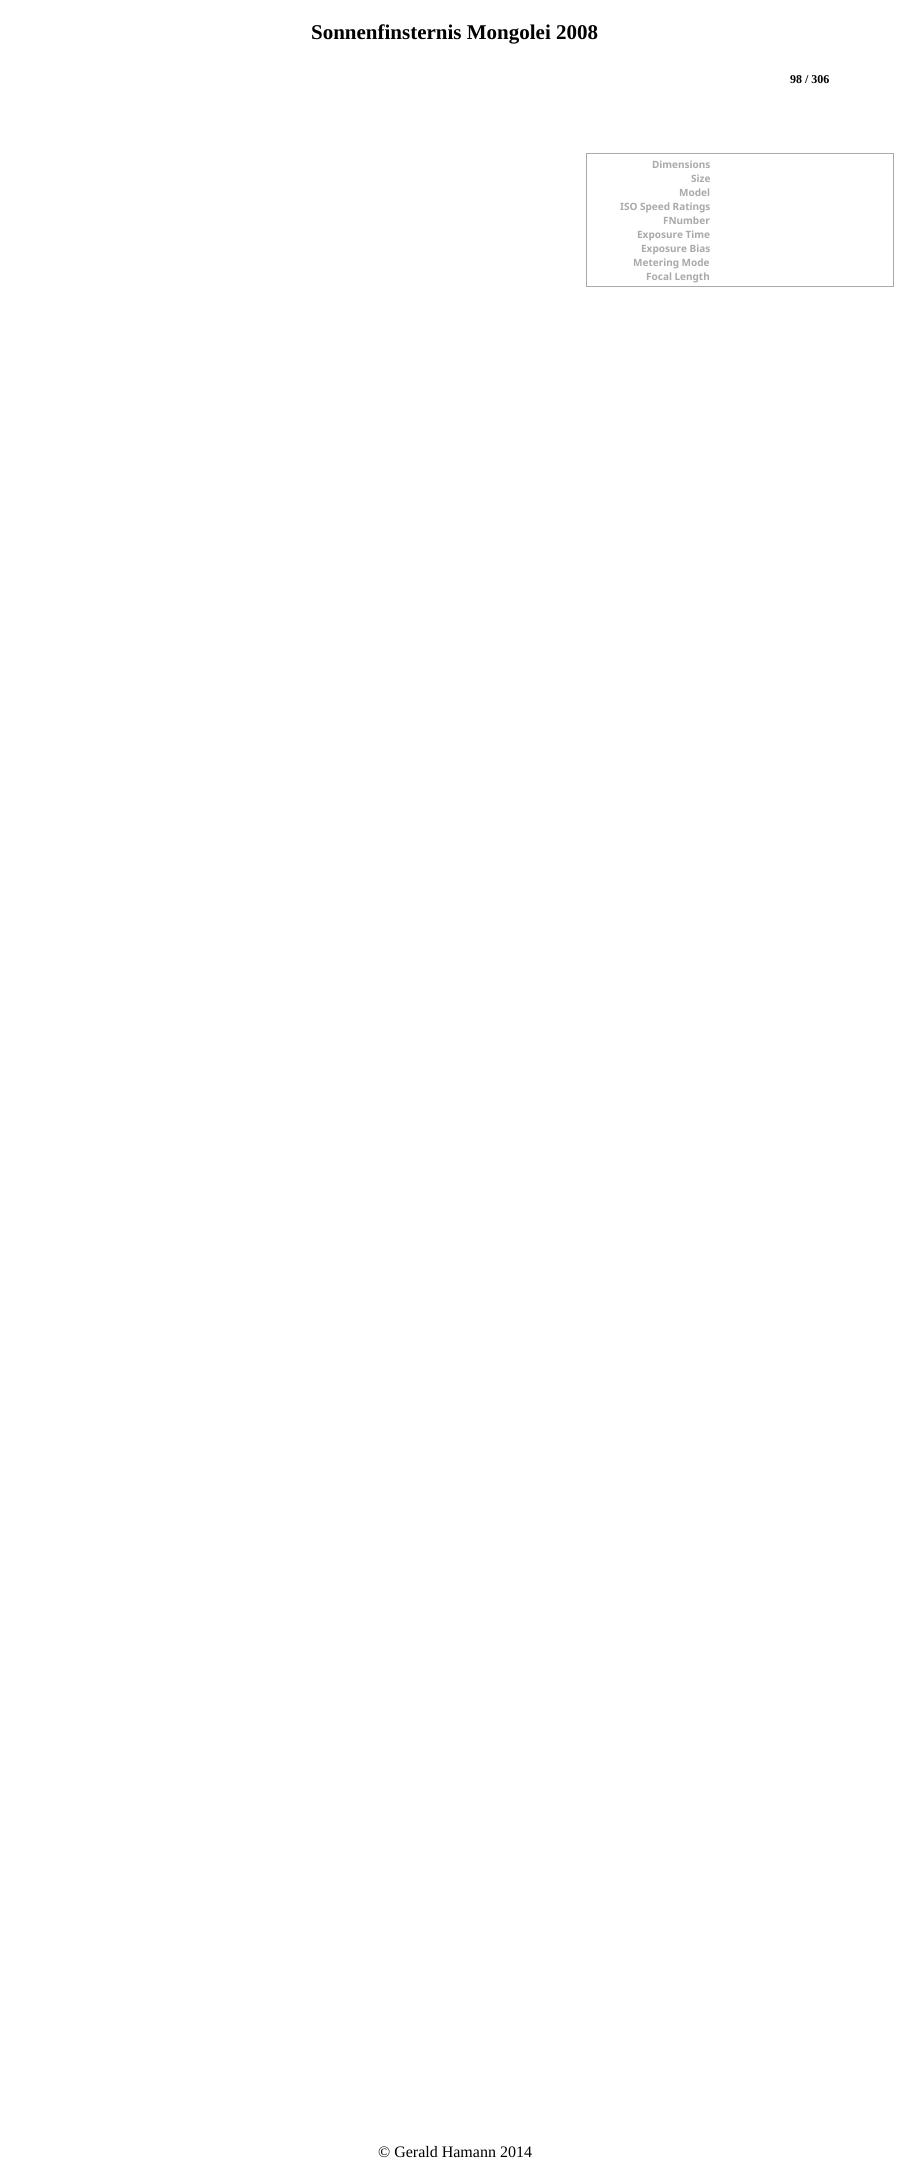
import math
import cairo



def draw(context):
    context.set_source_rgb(1, 1, 1)
    context.paint()
    context.rectangle(586.5, 153.5, 307, 133)
    context.set_source_rgb(170 / 255, 170 / 255, 170 / 255)
    context.set_line_width(1)
    context.stroke()
    context.select_font_face("Liberation Serif", cairo.FontSlant.NORMAL, cairo.FontWeight.BOLD)
    context.set_font_size(21)
    context.set_source_rgb(0, 0, 0)
    context.move_to(311, 39)
    context.show_text("Sonnenfinsternis Mongolei 2008")
    context.set_font_size(12)
    context.move_to(790, 83)
    context.show_text("98 / 306")
    context.select_font_face("Noto Sans", cairo.FontSlant.NORMAL, cairo.FontWeight.BOLD)
    context.set_font_size(10)
    context.set_source_rgb(170 / 255, 170 / 255, 170 / 255)
    context.move_to(652, 168)
    context.show_text("Dimensions")
    context.move_to(691, 182)
    context.show_text("Size")
    context.move_to(679, 196)
    context.show_text("Model")
    context.move_to(620, 210)
    context.show_text("ISO Speed Ratings")
    context.move_to(663, 224)
    context.show_text("FNumber")
    context.move_to(637, 238)
    context.show_text("Exposure Time")
    context.move_to(641, 252)
    context.show_text("Exposure Bias")
    context.move_to(633, 266)
    context.show_text("Metering Mode")
    context.move_to(646, 280)
    context.show_text("Focal Length")
    context.select_font_face("Liberation Serif")
    context.set_font_size(16)
    context.set_source_rgb(0, 0, 0)
    context.move_to(378, 2157)
    context.show_text("© Gerald Hamann 2014")


surface = cairo.ImageSurface(cairo.Format.RGB24, 909, 2175)
context = cairo.Context(surface)
options = cairo.FontOptions()
options.set_hint_metrics(cairo.HintMetrics.OFF)
options.set_hint_style(cairo.HintStyle.NONE)
context.set_font_options(options)
context.set_miter_limit(4)
draw(context)
surface.write_to_png("out.png")
